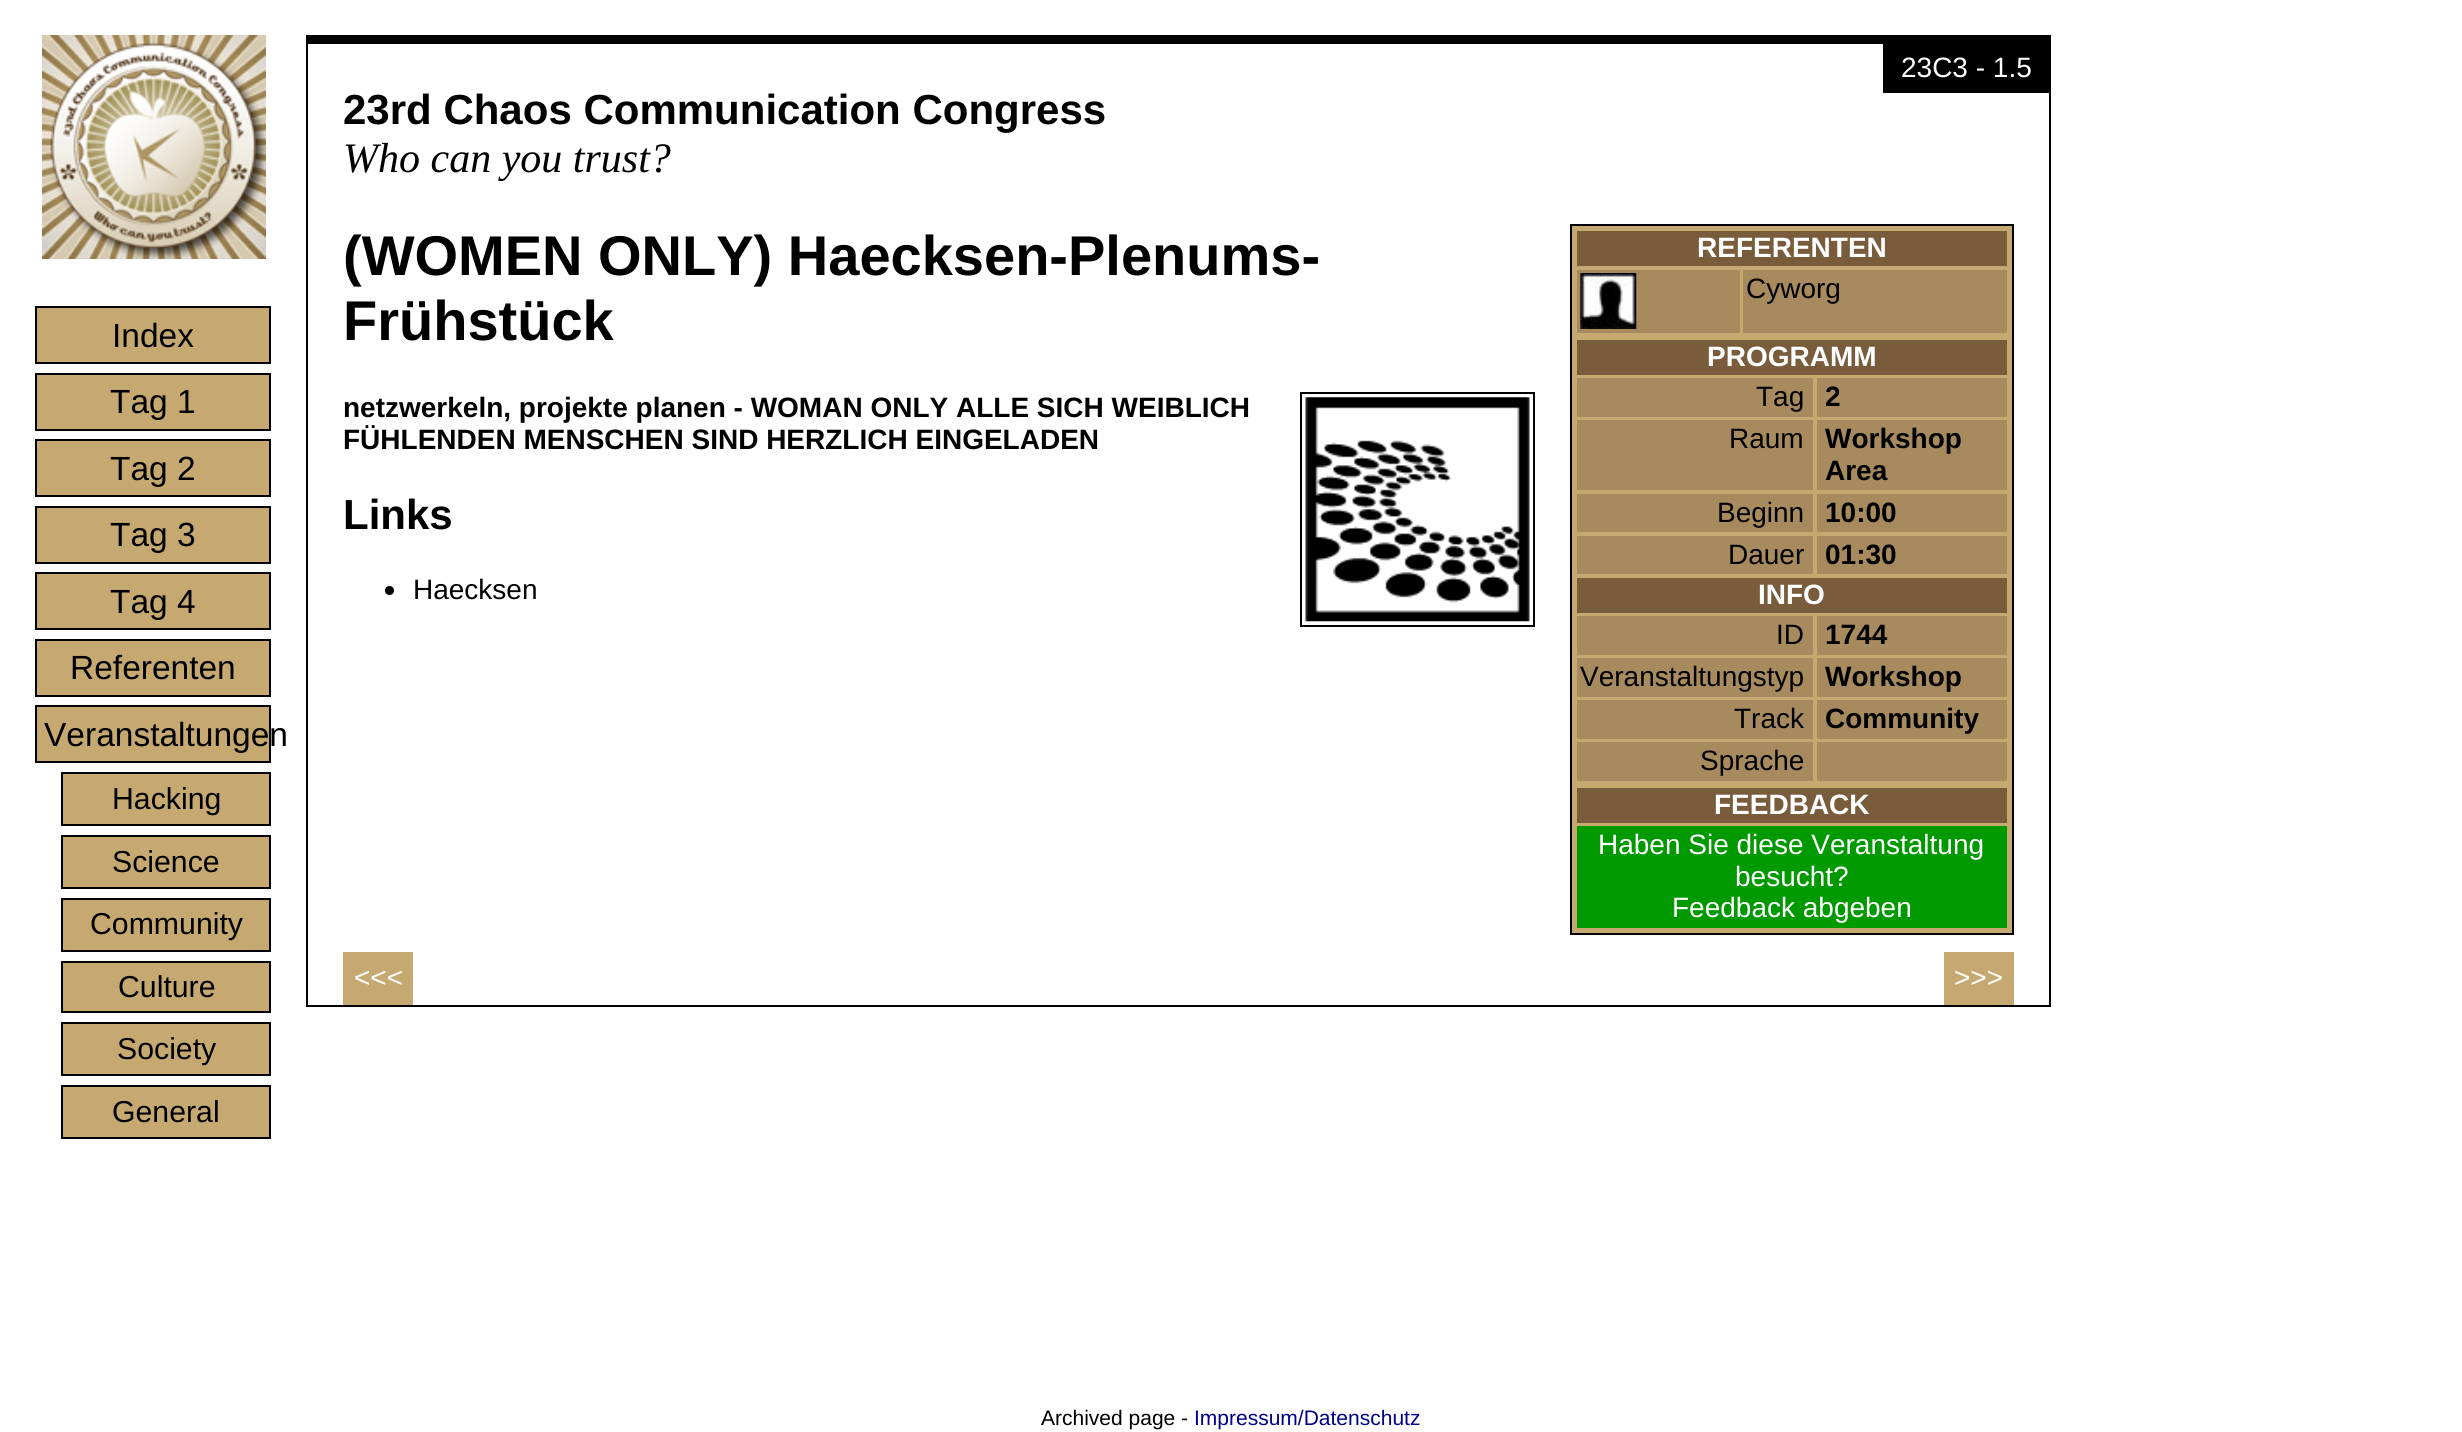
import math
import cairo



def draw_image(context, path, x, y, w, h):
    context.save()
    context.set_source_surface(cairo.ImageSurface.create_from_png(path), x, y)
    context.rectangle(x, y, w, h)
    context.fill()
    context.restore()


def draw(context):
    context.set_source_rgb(1, 1, 1)
    context.paint()
    draw_image(context, "images/1.png", 42, 35, 224, 224)
    context.set_source_rgb(0, 0, 0)
    context.rectangle(308, 35, 1741, 9)
    context.fill()
    context.rectangle(2049, 35, 2, 971)
    context.fill()
    context.rectangle(306, 1005, 1745, 2)
    context.fill()
    context.rectangle(306, 35, 2, 971)
    context.fill()
    context.rectangle(1883, 44, 166, 49)
    context.fill()
    context.rectangle(1301, 393, 233, 233)
    context.stroke()
    draw_image(context, "images/2.png", 1305, 397, 225, 225)
    context.set_source_rgb(198 / 255, 169 / 255, 113 / 255)
    context.rectangle(1571, 225, 442, 709)
    context.fill_preserve()
    context.set_source_rgb(0, 0, 0)
    context.stroke()
    context.set_source_rgb(121 / 255, 92 / 255, 60 / 255)
    context.rectangle(1577, 231, 430, 35)
    context.fill()
    context.set_source_rgb(167 / 255, 138 / 255, 94 / 255)
    context.rectangle(1577, 270, 163, 63)
    context.fill()
    draw_image(context, "images/3.png", 1580, 273, 57, 56)
    context.rectangle(1743, 270, 264, 63)
    context.fill()
    context.set_source_rgb(121 / 255, 92 / 255, 60 / 255)
    context.rectangle(1577, 340, 430, 35)
    context.fill()
    context.set_source_rgb(167 / 255, 138 / 255, 94 / 255)
    context.rectangle(1577, 378, 236, 39)
    context.fill()
    context.rectangle(1817, 378, 190, 39)
    context.fill()
    context.rectangle(1577, 420, 236, 70)
    context.fill()
    context.rectangle(1817, 420, 190, 70)
    context.fill()
    context.rectangle(1577, 494, 236, 38)
    context.fill()
    context.rectangle(1817, 494, 190, 38)
    context.fill()
    context.rectangle(1577, 536, 236, 38)
    context.fill()
    context.rectangle(1817, 536, 190, 38)
    context.fill()
    context.set_source_rgb(121 / 255, 92 / 255, 60 / 255)
    context.rectangle(1577, 578, 430, 35)
    context.fill()
    context.set_source_rgb(167 / 255, 138 / 255, 94 / 255)
    context.rectangle(1577, 616, 236, 39)
    context.fill()
    context.rectangle(1817, 616, 190, 39)
    context.fill()
    context.rectangle(1577, 658, 236, 39)
    context.fill()
    context.rectangle(1817, 658, 190, 39)
    context.fill()
    context.rectangle(1577, 700, 236, 39)
    context.fill()
    context.rectangle(1817, 700, 190, 39)
    context.fill()
    context.rectangle(1577, 742, 236, 39)
    context.fill()
    context.rectangle(1817, 742, 190, 39)
    context.fill()
    context.set_source_rgb(121 / 255, 92 / 255, 60 / 255)
    context.rectangle(1577, 788, 430, 35)
    context.fill()
    context.set_source_rgb(0, 153 / 255, 0)
    context.rectangle(1577, 826, 430, 102)
    context.fill()
    context.set_source_rgb(0, 0, 0)
    context.arc(389.5, 590.5, 4.5, 0, 2 * math.pi)
    context.fill()
    context.set_source_rgb(198 / 255, 169 / 255, 113 / 255)
    context.rectangle(343, 952, 70, 53)
    context.fill()
    context.rectangle(1944, 952, 70, 53)
    context.fill()
    context.rectangle(36, 307, 234, 56)
    context.fill_preserve()
    context.set_source_rgb(0, 0, 0)
    context.stroke()
    context.set_source_rgb(198 / 255, 169 / 255, 113 / 255)
    context.rectangle(36, 374, 234, 56)
    context.fill_preserve()
    context.set_source_rgb(0, 0, 0)
    context.stroke()
    context.set_source_rgb(198 / 255, 169 / 255, 113 / 255)
    context.rectangle(36, 440, 234, 56)
    context.fill_preserve()
    context.set_source_rgb(0, 0, 0)
    context.stroke()
    context.set_source_rgb(198 / 255, 169 / 255, 113 / 255)
    context.rectangle(36, 507, 234, 56)
    context.fill_preserve()
    context.set_source_rgb(0, 0, 0)
    context.stroke()
    context.set_source_rgb(198 / 255, 169 / 255, 113 / 255)
    context.rectangle(36, 573, 234, 56)
    context.fill_preserve()
    context.set_source_rgb(0, 0, 0)
    context.stroke()
    context.set_source_rgb(198 / 255, 169 / 255, 113 / 255)
    context.rectangle(36, 640, 234, 56)
    context.fill_preserve()
    context.set_source_rgb(0, 0, 0)
    context.stroke()
    context.set_source_rgb(198 / 255, 169 / 255, 113 / 255)
    context.rectangle(36, 706, 234, 56)
    context.fill_preserve()
    context.set_source_rgb(0, 0, 0)
    context.stroke()
    context.set_source_rgb(198 / 255, 169 / 255, 113 / 255)
    context.rectangle(62, 773, 208, 52)
    context.fill_preserve()
    context.set_source_rgb(0, 0, 0)
    context.stroke()
    context.set_source_rgb(198 / 255, 169 / 255, 113 / 255)
    context.rectangle(62, 836, 208, 52)
    context.fill_preserve()
    context.set_source_rgb(0, 0, 0)
    context.stroke()
    context.set_source_rgb(198 / 255, 169 / 255, 113 / 255)
    context.rectangle(62, 899, 208, 52)
    context.fill_preserve()
    context.set_source_rgb(0, 0, 0)
    context.stroke()
    context.set_source_rgb(198 / 255, 169 / 255, 113 / 255)
    context.rectangle(62, 962, 208, 50)
    context.fill_preserve()
    context.set_source_rgb(0, 0, 0)
    context.stroke()
    context.set_source_rgb(198 / 255, 169 / 255, 113 / 255)
    context.rectangle(62, 1023, 208, 52)
    context.fill_preserve()
    context.set_source_rgb(0, 0, 0)
    context.stroke()
    context.set_source_rgb(198 / 255, 169 / 255, 113 / 255)
    context.rectangle(62, 1086, 208, 52)
    context.fill_preserve()
    context.set_source_rgb(0, 0, 0)
    context.stroke()
    context.select_font_face("Liberation Sans")
    context.set_font_size(28)
    context.set_source_rgb(1, 1, 1)
    context.move_to(1901, 77)
    context.show_text("23C3 - 1.5")
    context.select_font_face("Liberation Sans", cairo.FontSlant.NORMAL, cairo.FontWeight.BOLD)
    context.set_font_size(42)
    context.set_source_rgb(0, 0, 0)
    context.move_to(343, 124)
    context.show_text("23rd Chaos Communication Congress")
    context.select_font_face("Liberation Serif", cairo.FontSlant.ITALIC)
    context.move_to(343, 172)
    context.show_text("Who can you trust?")
    context.select_font_face("Liberation Sans", cairo.FontSlant.NORMAL, cairo.FontWeight.BOLD)
    context.set_font_size(56)
    context.move_to(343, 275)
    context.show_text("(WOMEN ONLY) Haecksen-Plenums-")
    context.move_to(343, 340)
    context.show_text("Frühstück")
    context.set_font_size(28)
    context.set_source_rgb(1, 1, 1)
    context.move_to(1697, 257)
    context.show_text("REFERENTEN")
    context.select_font_face("Liberation Sans")
    context.set_source_rgb(0, 0, 0)
    context.move_to(1746, 298)
    context.show_text("Cyworg")
    context.select_font_face("Liberation Sans", cairo.FontSlant.NORMAL, cairo.FontWeight.BOLD)
    context.set_source_rgb(1, 1, 1)
    context.move_to(1707, 366)
    context.show_text("PROGRAMM")
    context.select_font_face("Liberation Sans")
    context.set_source_rgb(0, 0, 0)
    context.move_to(1756, 406)
    context.show_text("Tag")
    context.select_font_face("Liberation Sans", cairo.FontSlant.NORMAL, cairo.FontWeight.BOLD)
    context.move_to(1825, 406)
    context.show_text("2")
    context.select_font_face("Liberation Sans")
    context.move_to(1729, 448)
    context.show_text("Raum")
    context.select_font_face("Liberation Sans", cairo.FontSlant.NORMAL, cairo.FontWeight.BOLD)
    context.move_to(1825, 448)
    context.show_text("Workshop")
    context.move_to(1825, 480)
    context.show_text("Area")
    context.select_font_face("Liberation Sans")
    context.move_to(1717, 522)
    context.show_text("Beginn")
    context.select_font_face("Liberation Sans", cairo.FontSlant.NORMAL, cairo.FontWeight.BOLD)
    context.move_to(1825, 522)
    context.show_text("10:00")
    context.select_font_face("Liberation Sans")
    context.move_to(1728, 564)
    context.show_text("Dauer")
    context.select_font_face("Liberation Sans", cairo.FontSlant.NORMAL, cairo.FontWeight.BOLD)
    context.move_to(1825, 564)
    context.show_text("01:30")
    context.set_source_rgb(1, 1, 1)
    context.move_to(1758, 604)
    context.show_text("INFO")
    context.select_font_face("Liberation Sans")
    context.set_source_rgb(0, 0, 0)
    context.move_to(1776, 644)
    context.show_text("ID")
    context.select_font_face("Liberation Sans", cairo.FontSlant.NORMAL, cairo.FontWeight.BOLD)
    context.move_to(1825, 644)
    context.show_text("1744")
    context.select_font_face("Liberation Sans")
    context.move_to(1580, 686)
    context.show_text("Veranstaltungstyp")
    context.select_font_face("Liberation Sans", cairo.FontSlant.NORMAL, cairo.FontWeight.BOLD)
    context.move_to(1825, 686)
    context.show_text("Workshop")
    context.select_font_face("Liberation Sans")
    context.move_to(1734, 728)
    context.show_text("Track")
    context.select_font_face("Liberation Sans", cairo.FontSlant.NORMAL, cairo.FontWeight.BOLD)
    context.move_to(1825, 728)
    context.show_text("Community")
    context.select_font_face("Liberation Sans")
    context.move_to(1700, 770)
    context.show_text("Sprache")
    context.select_font_face("Liberation Sans", cairo.FontSlant.NORMAL, cairo.FontWeight.BOLD)
    context.set_source_rgb(1, 1, 1)
    context.move_to(1714, 814)
    context.show_text("FEEDBACK")
    context.select_font_face("Liberation Sans")
    context.move_to(1598, 854)
    context.show_text("Haben Sie diese Veranstaltung")
    context.move_to(1735, 886)
    context.show_text("besucht?")
    context.move_to(1672, 917)
    context.show_text("Feedback abgeben")
    context.select_font_face("Liberation Sans", cairo.FontSlant.NORMAL, cairo.FontWeight.BOLD)
    context.set_source_rgb(0, 0, 0)
    context.move_to(343, 417)
    context.show_text("netzwerkeln, projekte planen - WOMAN ONLY ALLE SICH WEIBLICH")
    context.move_to(343, 449)
    context.show_text("FÜHLENDEN MENSCHEN SIND HERZLICH EINGELADEN")
    context.set_font_size(42)
    context.move_to(343, 529)
    context.show_text("Links")
    context.select_font_face("Liberation Sans")
    context.set_font_size(28)
    context.move_to(413, 599)
    context.show_text("Haecksen")
    context.set_source_rgb(1, 1, 1)
    context.move_to(354, 987)
    context.show_text("<<<")
    context.move_to(1954, 987)
    context.show_text(">>>")
    context.set_font_size(33.5)
    context.set_source_rgb(0, 0, 0)
    context.move_to(112, 347)
    context.show_text("Index")
    context.move_to(110, 413)
    context.show_text("Tag 1")
    context.move_to(110, 480)
    context.show_text("Tag 2")
    context.move_to(110, 546)
    context.show_text("Tag 3")
    context.move_to(110, 613)
    context.show_text("Tag 4")
    context.move_to(70, 679)
    context.show_text("Referenten")
    context.move_to(44, 746)
    context.show_text("Veranstaltungen")
    context.set_font_size(30.25)
    context.move_to(112, 809)
    context.show_text("Hacking")
    context.move_to(112, 872)
    context.show_text("Science")
    context.move_to(90, 934)
    context.show_text("Community")
    context.move_to(118, 997)
    context.show_text("Culture")
    context.move_to(117, 1059)
    context.show_text("Society")
    context.move_to(112, 1122)
    context.show_text("General")
    context.set_font_size(21)
    context.move_to(1041, 1425)
    context.show_text("Archived page -")
    context.set_source_rgb(0, 0, 139 / 255)
    context.move_to(1194, 1425)
    context.show_text("Impressum/Datenschutz")


surface = cairo.ImageSurface(cairo.Format.RGB24, 2462, 1432)
context = cairo.Context(surface)
options = cairo.FontOptions()
options.set_hint_metrics(cairo.HintMetrics.OFF)
options.set_hint_style(cairo.HintStyle.NONE)
context.set_font_options(options)
context.set_miter_limit(4)
draw(context)
surface.write_to_png("out.png")
